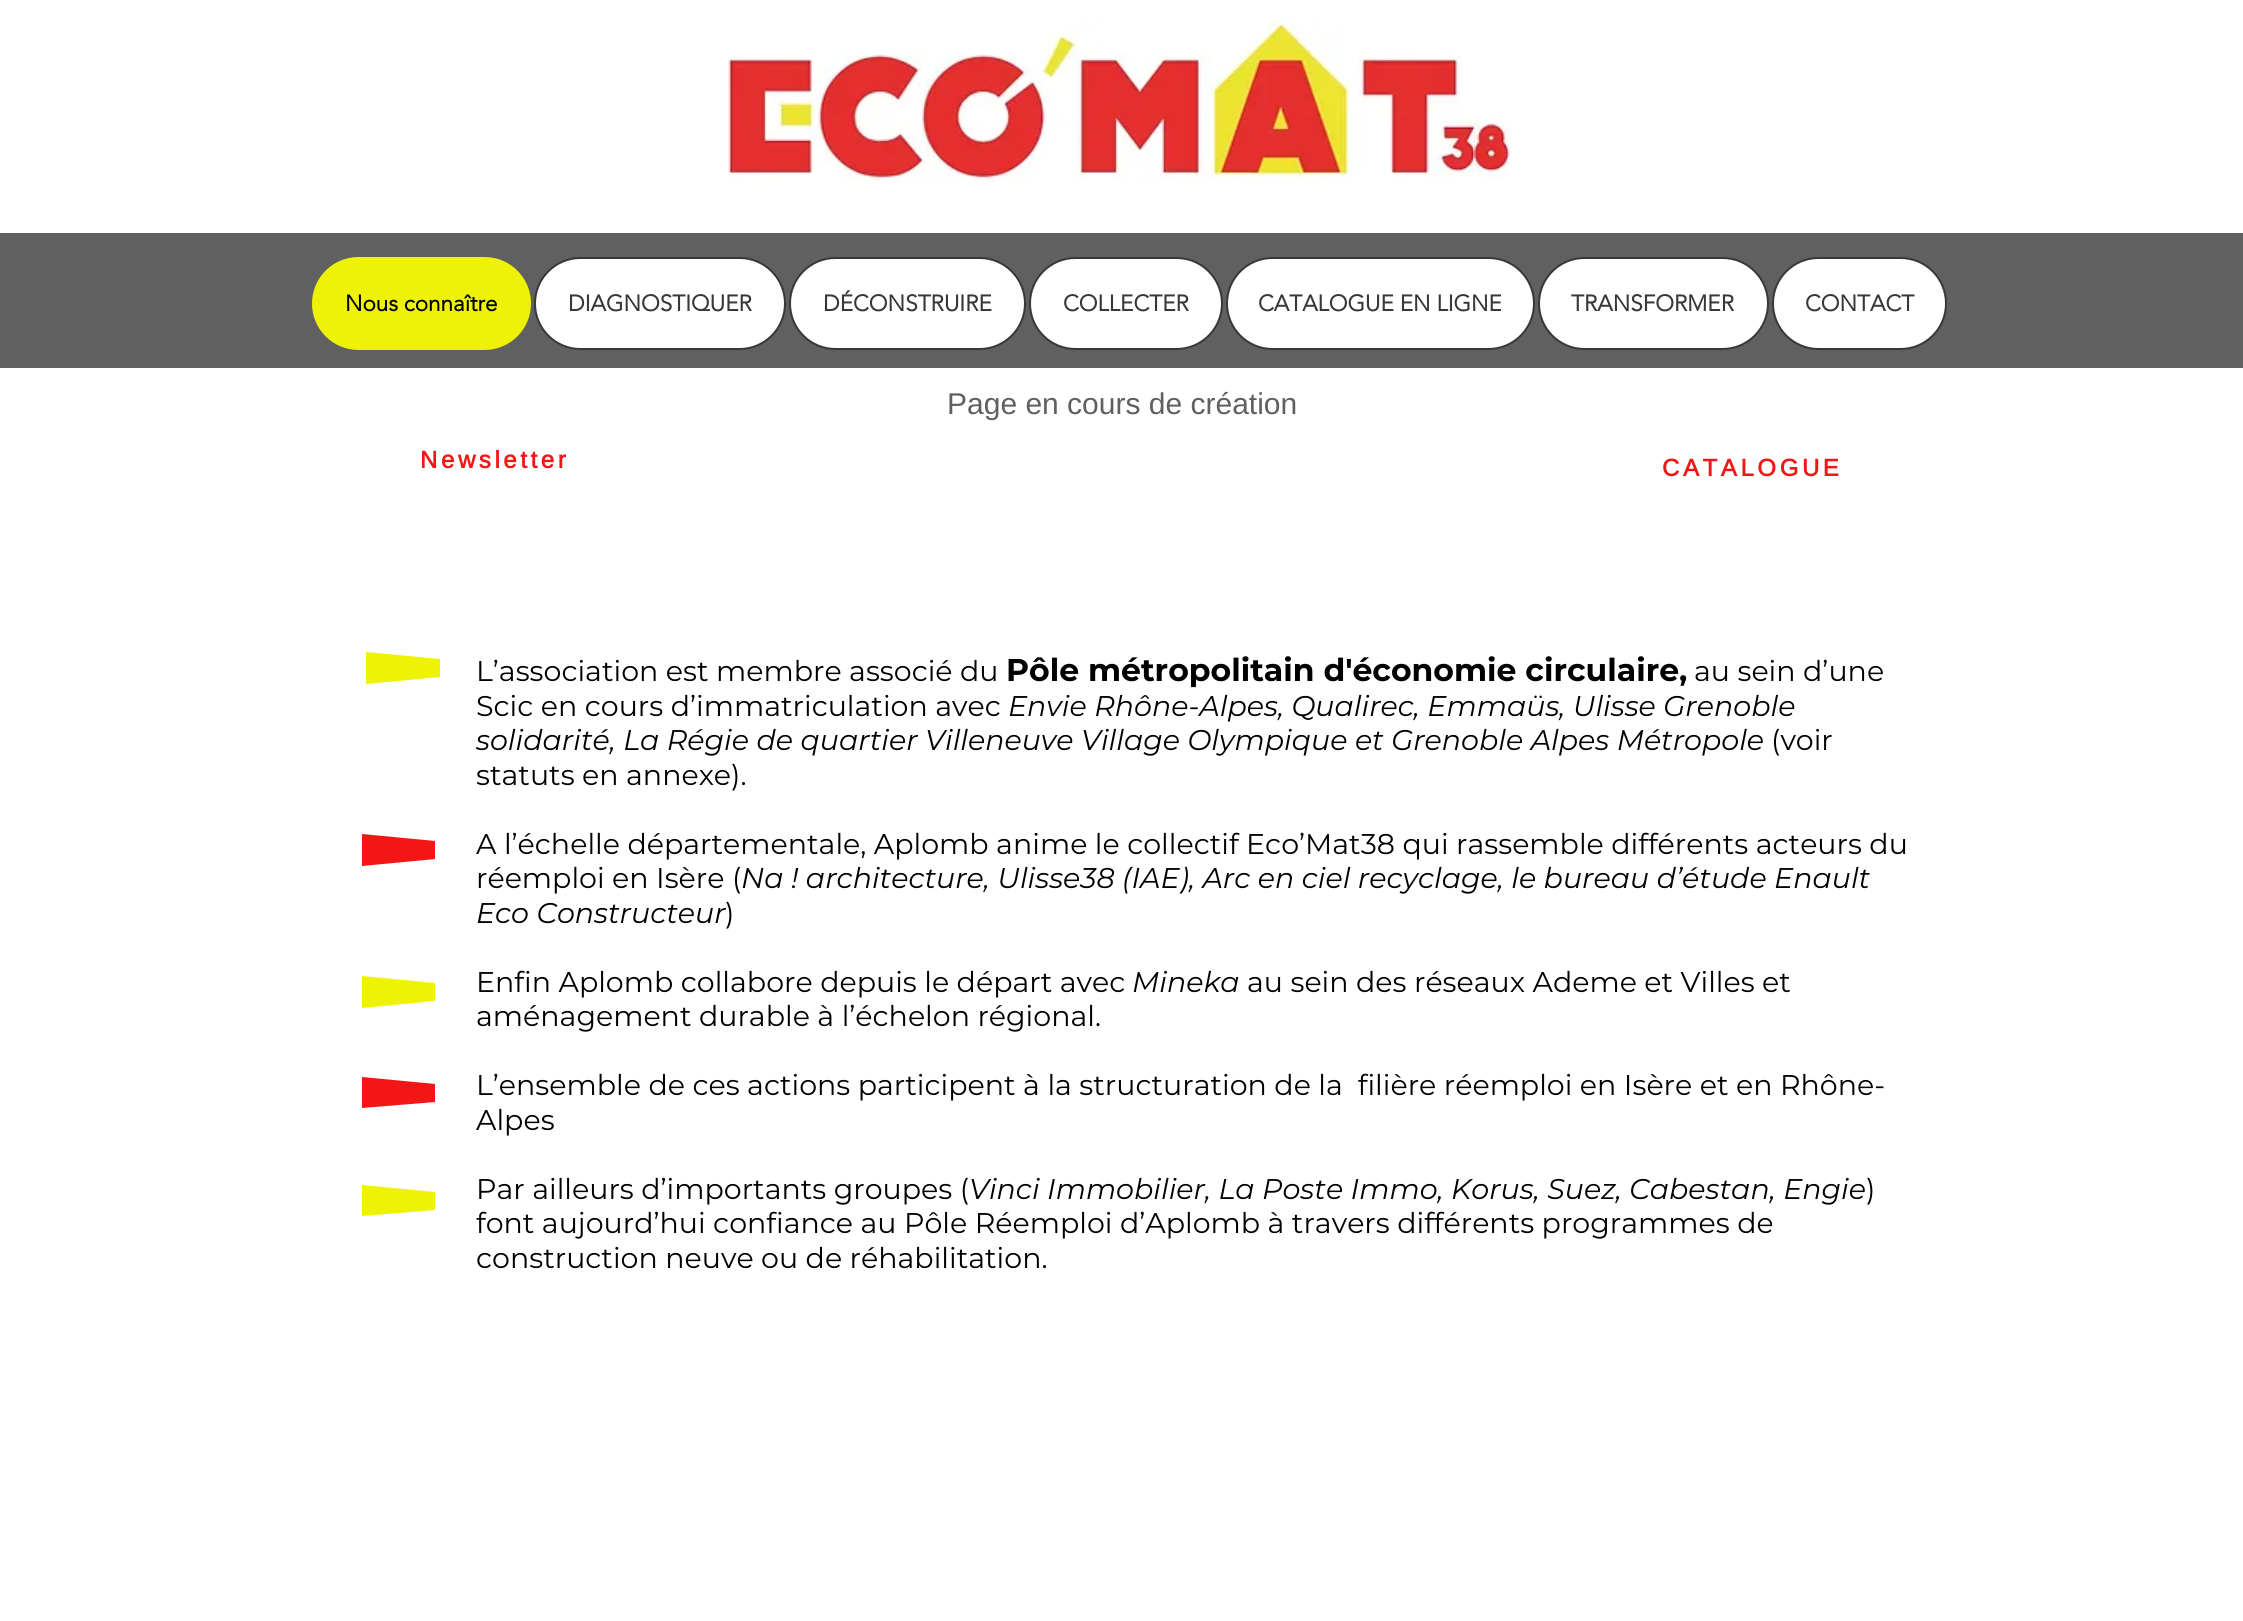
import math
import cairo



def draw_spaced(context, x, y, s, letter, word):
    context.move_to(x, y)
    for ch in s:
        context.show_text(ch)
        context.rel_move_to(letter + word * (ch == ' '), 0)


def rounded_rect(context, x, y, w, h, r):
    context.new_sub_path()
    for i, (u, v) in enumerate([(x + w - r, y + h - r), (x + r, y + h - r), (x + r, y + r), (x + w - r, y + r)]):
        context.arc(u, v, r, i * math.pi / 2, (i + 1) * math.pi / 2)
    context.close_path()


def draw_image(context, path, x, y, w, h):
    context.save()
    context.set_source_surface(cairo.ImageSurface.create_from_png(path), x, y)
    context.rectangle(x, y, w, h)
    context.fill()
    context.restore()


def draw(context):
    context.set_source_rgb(1, 1, 1)
    context.paint()
    draw_image(context, "images/1.png", 727, 20, 784, 162)
    context.set_source_rgb(96 / 255, 96 / 255, 96 / 255)
    context.rectangle(0, 233, 2243, 135)
    context.fill()
    context.set_source_rgb(238 / 255, 242 / 255, 7 / 255)
    rounded_rect(context, 312, 257, 219, 93, 46.5)
    context.fill()
    context.set_source_rgb(1, 1, 1)
    rounded_rect(context, 535, 258, 250, 91, 45.5)
    context.fill_preserve()
    context.set_source_rgb(56 / 255, 56 / 255, 56 / 255)
    context.stroke()
    context.set_source_rgb(1, 1, 1)
    rounded_rect(context, 790, 258, 235, 91, 45.5)
    context.fill_preserve()
    context.set_source_rgb(56 / 255, 56 / 255, 56 / 255)
    context.stroke()
    context.set_source_rgb(1, 1, 1)
    rounded_rect(context, 1030, 258, 192, 91, 45.5)
    context.fill_preserve()
    context.set_source_rgb(56 / 255, 56 / 255, 56 / 255)
    context.stroke()
    context.set_source_rgb(1, 1, 1)
    rounded_rect(context, 1227, 258, 307, 91, 45.5)
    context.fill_preserve()
    context.set_source_rgb(56 / 255, 56 / 255, 56 / 255)
    context.stroke()
    context.set_source_rgb(1, 1, 1)
    rounded_rect(context, 1539, 258, 229, 91, 45.5)
    context.fill_preserve()
    context.set_source_rgb(56 / 255, 56 / 255, 56 / 255)
    context.stroke()
    context.set_source_rgb(1, 1, 1)
    rounded_rect(context, 1773, 258, 173, 91, 45.5)
    context.fill_preserve()
    context.set_source_rgb(56 / 255, 56 / 255, 56 / 255)
    context.stroke()
    context.set_source_rgb(238 / 255, 242 / 255, 5 / 255)
    context.new_path()
    context.move_to(366, 684)
    context.line_to(366, 652)
    context.line_to(440, 659)
    context.line_to(440, 677)
    context.close_path()
    context.fill()
    context.set_source_rgb(242 / 255, 22 / 255, 22 / 255)
    context.new_path()
    context.move_to(362, 866)
    context.line_to(362, 834)
    context.line_to(435, 841)
    context.line_to(435, 859)
    context.close_path()
    context.fill()
    context.set_source_rgb(238 / 255, 242 / 255, 5 / 255)
    context.new_path()
    context.move_to(362, 1008)
    context.line_to(362, 976)
    context.line_to(435, 983)
    context.line_to(435, 1001)
    context.close_path()
    context.fill()
    context.set_source_rgb(242 / 255, 22 / 255, 22 / 255)
    context.new_path()
    context.move_to(362, 1108)
    context.line_to(362, 1077)
    context.line_to(435, 1084)
    context.line_to(435, 1102)
    context.close_path()
    context.fill()
    context.set_source_rgb(238 / 255, 242 / 255, 5 / 255)
    context.new_path()
    context.move_to(362, 1216)
    context.line_to(362, 1185)
    context.line_to(435, 1192)
    context.line_to(435, 1210)
    context.close_path()
    context.fill()
    context.select_font_face("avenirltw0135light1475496", cairo.FontSlant.NORMAL, cairo.FontWeight.BOLD)
    context.set_font_size(22.5)
    context.set_source_rgb(0, 0, 0)
    context.move_to(345, 311)
    context.show_text("Nous connaître")
    context.set_source_rgb(56 / 255, 56 / 255, 56 / 255)
    context.move_to(568, 311)
    context.show_text("DIAGNOSTIQUER")
    context.move_to(823, 311)
    context.show_text("DÉCONSTRUIRE")
    context.move_to(1063, 311)
    context.show_text("COLLECTER")
    context.move_to(1258, 311)
    context.show_text("CATALOGUE EN LIGNE")
    context.move_to(1571, 311)
    context.show_text("TRANSFORMER")
    context.move_to(1805, 311)
    context.show_text("CONTACT")
    context.select_font_face("Arimo")
    context.set_font_size(30)
    context.set_source_rgb(96 / 255, 96 / 255, 96 / 255)
    context.move_to(947, 414)
    context.show_text("Page en cours de création")
    context.select_font_face("Arimo", cairo.FontSlant.NORMAL, cairo.FontWeight.BOLD)
    context.set_font_size(24)
    context.set_source_rgb(242 / 255, 22 / 255, 22 / 255)
    draw_spaced(context, 420, 468, "Newsletter", 3.6, 0)
    draw_spaced(context, 1662, 476, "CATALOGUE", 3.6, 0)
    context.select_font_face("Montserrat")
    context.set_font_size(28.5)
    context.set_source_rgb(0, 0, 0)
    context.move_to(476, 681)
    context.show_text("L’association est membre associé du")
    context.select_font_face("Montserrat", cairo.FontSlant.NORMAL, cairo.FontWeight.BOLD)
    context.set_font_size(31.5)
    context.move_to(1006, 681)
    context.show_text("Pôle métropolitain d'économie circulaire,")
    context.select_font_face("Montserrat")
    context.set_font_size(28.5)
    context.move_to(1694, 681)
    context.show_text("au sein d’une")
    context.move_to(476, 716)
    context.show_text("Scic en cours d’immatriculation avec")
    context.select_font_face("Montserrat", cairo.FontSlant.ITALIC)
    context.move_to(1008, 716)
    context.show_text("Envie Rhône-Alpes, Qualirec, Emmaüs, Ulisse Grenoble")
    context.move_to(476, 750)
    context.show_text("solidarité, La Régie de quartier Villeneuve Village Olympique et Grenoble Alpes Métropole")
    context.select_font_face("Montserrat")
    context.move_to(1771, 750)
    context.show_text("(voir")
    context.move_to(476, 785)
    context.show_text("statuts en annexe).")
    context.move_to(476, 854)
    context.show_text("A l’échelle départementale, Aplomb anime le collectif Eco’Mat38 qui rassemble différents acteurs du")
    context.move_to(476, 888)
    context.show_text("réemploi en Isère (")
    context.select_font_face("Montserrat", cairo.FontSlant.ITALIC)
    context.move_to(741, 888)
    context.show_text("Na ! architecture, Ulisse38 (IAE), Arc en ciel recyclage, le bureau d’étude Enault")
    context.move_to(476, 923)
    context.show_text("Eco Constructeur")
    context.select_font_face("Montserrat")
    context.move_to(725, 923)
    context.show_text(")")
    context.move_to(476, 992)
    context.show_text("Enfin Aplomb collabore depuis le départ avec")
    context.select_font_face("Montserrat", cairo.FontSlant.ITALIC)
    context.move_to(1132, 992)
    context.show_text("Mineka")
    context.select_font_face("Montserrat")
    context.move_to(1247, 992)
    context.show_text("au sein des réseaux Ademe et Villes et")
    context.move_to(476, 1026)
    context.show_text("aménagement durable à l’échelon régional.")
    context.move_to(476, 1095)
    context.show_text("L’ensemble de ces actions participent à la structuration de la  filière réemploi en Isère et en Rhône-")
    context.move_to(476, 1130)
    context.show_text("Alpes")
    context.move_to(476, 1199)
    context.show_text("Par ailleurs d’importants groupes (")
    context.select_font_face("Montserrat", cairo.FontSlant.ITALIC)
    context.move_to(969, 1199)
    context.show_text("Vinci Immobilier, La Poste Immo, Korus, Suez, Cabestan, Engie")
    context.select_font_face("Montserrat")
    context.move_to(1866, 1199)
    context.show_text(")")
    context.move_to(476, 1233)
    context.show_text("font aujourd’hui confiance au Pôle Réemploi d’Aplomb à travers différents programmes de")
    context.move_to(476, 1268)
    context.show_text("construction neuve ou de réhabilitation.")


surface = cairo.ImageSurface(cairo.Format.RGB24, 2243, 1621)
context = cairo.Context(surface)
options = cairo.FontOptions()
options.set_hint_metrics(cairo.HintMetrics.OFF)
options.set_hint_style(cairo.HintStyle.NONE)
context.set_font_options(options)
context.set_miter_limit(4)
draw(context)
surface.write_to_png("out.png")
